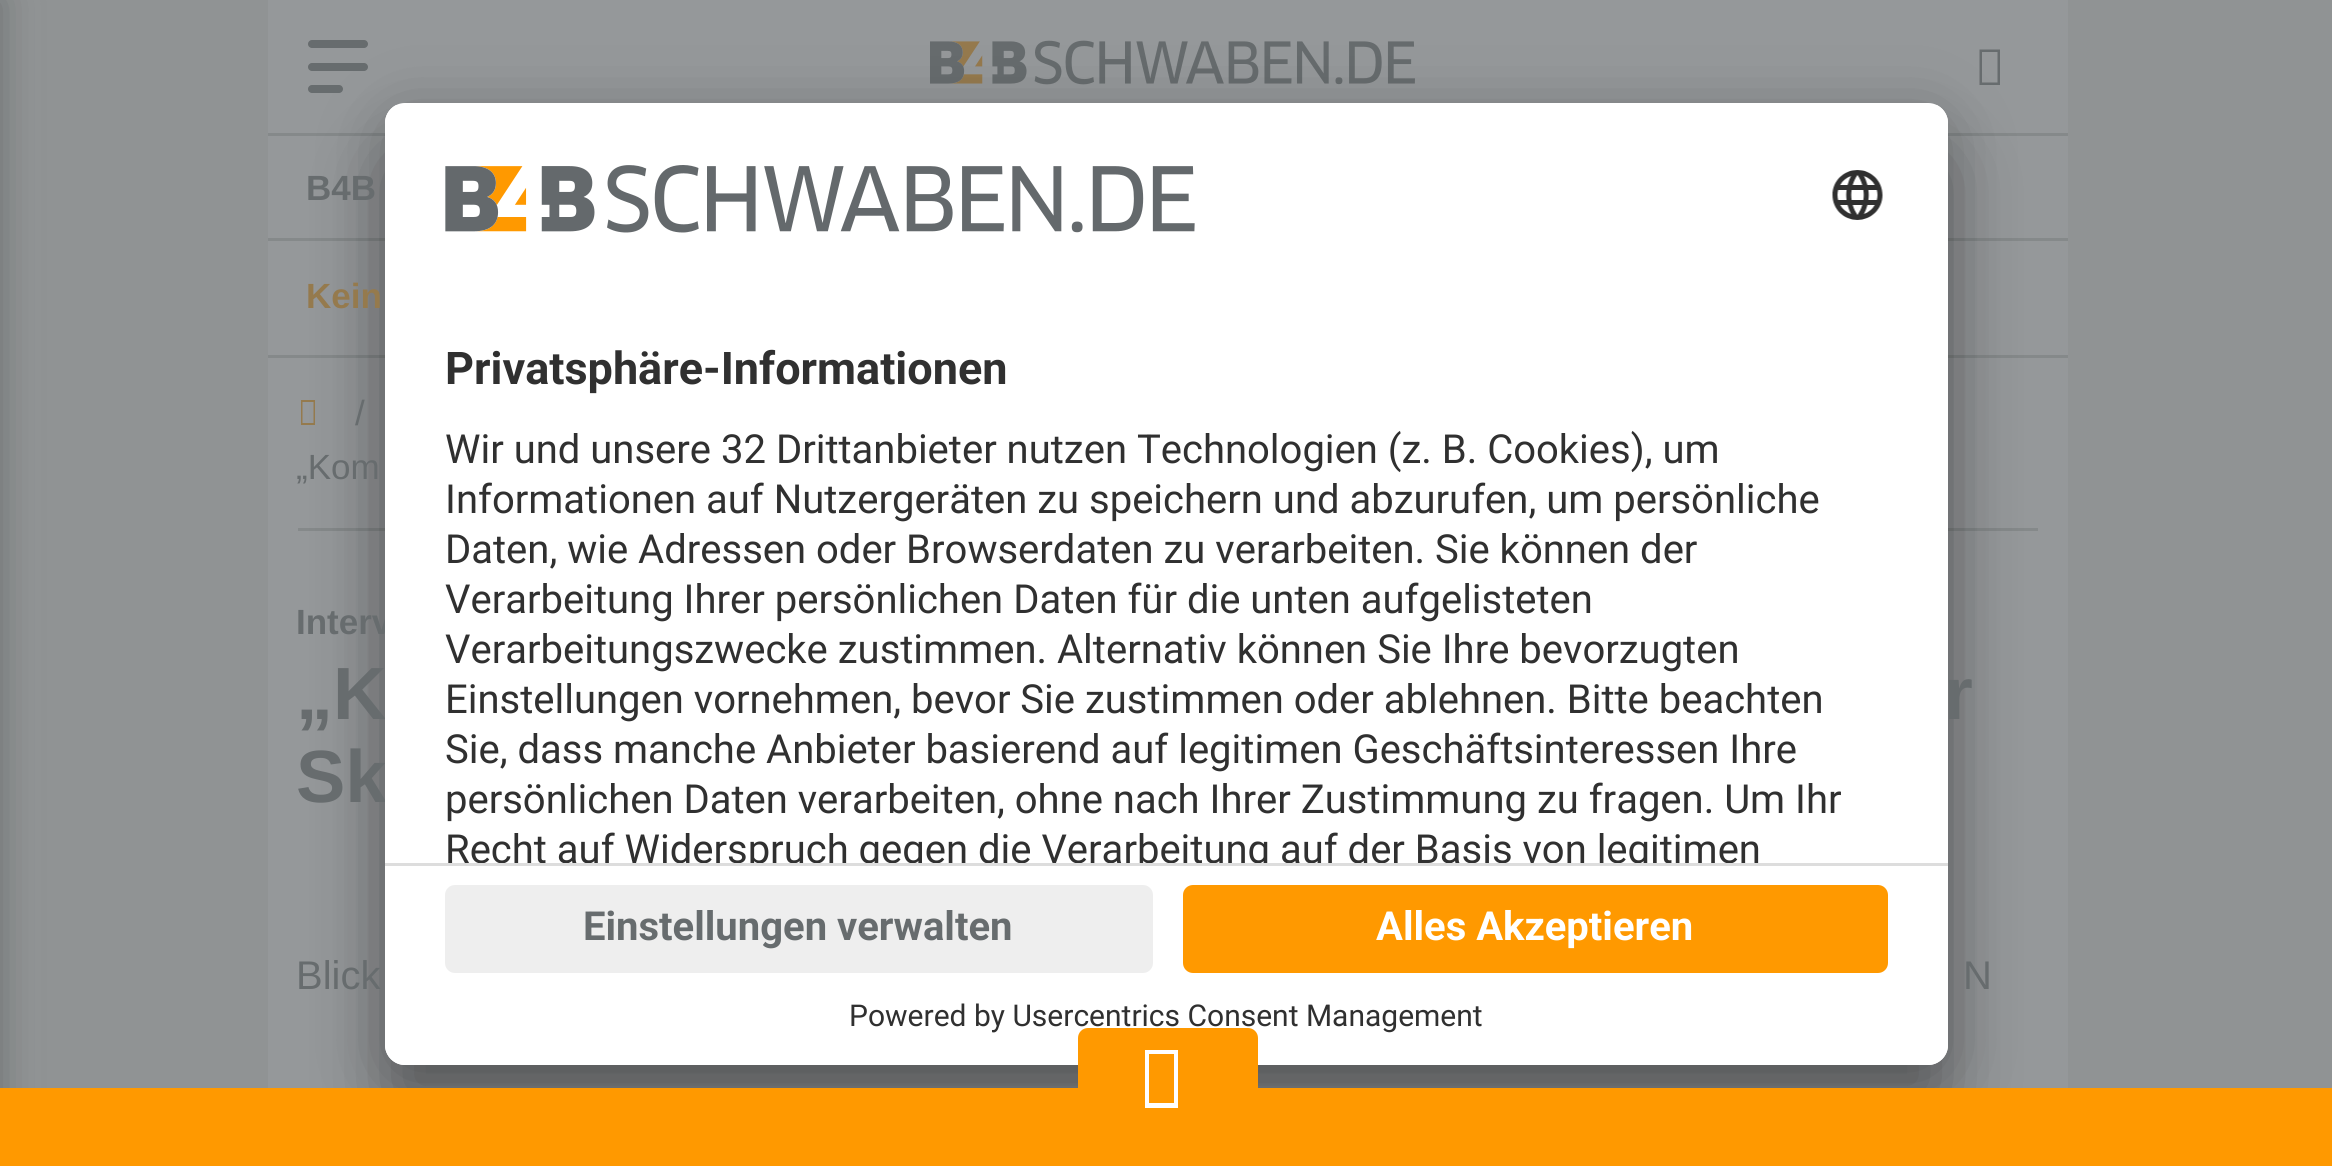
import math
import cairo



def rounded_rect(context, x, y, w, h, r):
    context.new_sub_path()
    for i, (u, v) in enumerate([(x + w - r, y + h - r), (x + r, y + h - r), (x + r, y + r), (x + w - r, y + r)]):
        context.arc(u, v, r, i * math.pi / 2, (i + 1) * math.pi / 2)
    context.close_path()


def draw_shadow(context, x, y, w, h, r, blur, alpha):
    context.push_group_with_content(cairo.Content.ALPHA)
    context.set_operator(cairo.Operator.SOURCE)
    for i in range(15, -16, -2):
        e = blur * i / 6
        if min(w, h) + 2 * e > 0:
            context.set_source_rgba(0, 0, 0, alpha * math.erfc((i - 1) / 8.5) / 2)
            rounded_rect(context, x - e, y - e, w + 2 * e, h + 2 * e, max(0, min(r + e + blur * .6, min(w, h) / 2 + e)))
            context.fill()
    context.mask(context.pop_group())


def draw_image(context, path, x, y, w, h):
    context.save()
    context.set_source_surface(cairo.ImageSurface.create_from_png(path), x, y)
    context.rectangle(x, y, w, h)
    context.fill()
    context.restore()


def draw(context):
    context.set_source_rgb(144 / 255, 147 / 255, 148 / 255)
    context.paint()
    context.set_source_rgb(72 / 255, 76 / 255, 77 / 255)
    draw_shadow(context, -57, 0, 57, 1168, 0, 19, 0.5)
    context.set_source_rgb(149 / 255, 152 / 255, 154 / 255)
    context.rectangle(268, 0, 1800, 238)
    context.fill()
    context.set_source_rgb(133 / 255, 137 / 255, 138 / 255)
    context.rectangle(268, 133, 1800, 3)
    context.fill()
    context.set_source_rgb(103 / 255, 108 / 255, 110 / 255)
    rounded_rect(context, 308, 40, 60, 8, 4)
    context.fill()
    rounded_rect(context, 308, 63, 60, 8, 4)
    context.fill()
    rounded_rect(context, 308, 85, 35, 8, 4)
    context.fill()
    draw_image(context, "images/1.png", 930, 40, 485, 45)
    context.new_path()
    context.move_to(1979.5, 85)
    context.line_to(1979.5, 49.5)
    context.line_to(2000, 49.5)
    context.line_to(2000, 85)
    context.close_path()
    context.move_to(1982, 82.5)
    context.line_to(1997.5, 82.5)
    context.line_to(1997.5, 52)
    context.line_to(1982, 52)
    context.close_path()
    context.fill()
    context.set_source_rgb(133 / 255, 137 / 255, 138 / 255)
    context.rectangle(268, 238, 1800, 3)
    context.fill()
    context.set_source_rgb(149 / 255, 152 / 255, 154 / 255)
    context.rectangle(268, 241, 1800, 847)
    context.fill()
    context.set_source_rgb(133 / 255, 137 / 255, 138 / 255)
    context.rectangle(268, 355, 1800, 3)
    context.fill()
    context.rectangle(298, 528, 1740, 3)
    context.fill()
    context.set_source_rgb(149 / 255, 122 / 255, 77 / 255)
    context.new_path()
    context.move_to(301, 425)
    context.line_to(301, 400)
    context.line_to(315, 400)
    context.line_to(315, 425)
    context.close_path()
    context.move_to(302.5, 423)
    context.line_to(313.5, 423)
    context.line_to(313.5, 402)
    context.line_to(302.5, 402)
    context.close_path()
    context.fill()
    context.set_source_rgb(0, 0, 0)
    draw_shadow(context, 385, 153, 1563, 962, 20, 35, 0.3)
    draw_shadow(context, 385, 115, 1563, 963, 20, 32.5, 0.22)
    context.set_source_rgb(1, 153 / 255, 0)
    context.rectangle(0, 1088, 2332, 78)
    context.fill()
    context.select_font_face("Liberation Sans", cairo.FontSlant.NORMAL, cairo.FontWeight.BOLD)
    context.set_font_size(35)
    context.set_source_rgb(103 / 255, 108 / 255, 110 / 255)
    context.move_to(306, 200)
    context.show_text("B4B")
    context.set_source_rgb(149 / 255, 122 / 255, 77 / 255)
    context.move_to(306, 308)
    context.show_text("Kein")
    context.select_font_face("Liberation Sans")
    context.set_source_rgb(103 / 255, 108 / 255, 110 / 255)
    context.move_to(355, 425)
    context.show_text("/")
    context.move_to(296, 479)
    context.show_text("„Kom")
    context.select_font_face("Liberation Sans", cairo.FontSlant.NORMAL, cairo.FontWeight.BOLD)
    context.move_to(296, 634)
    context.show_text("Interv")
    context.set_font_size(74)
    context.move_to(296, 719)
    context.show_text("„K")
    context.move_to(1944, 719)
    context.show_text("r")
    context.move_to(296, 802)
    context.show_text("Sk")
    context.select_font_face("Liberation Sans")
    context.set_font_size(40)
    context.move_to(296, 989)
    context.show_text("Blick")
    context.move_to(1963, 989)
    context.show_text("N")
    context.set_source_rgb(1, 1, 1)
    rounded_rect(context, 385, 103, 1563, 962, 20)
    context.fill()
    context.save()
    rounded_rect(context, 385, 103, 1563, 962, 20)
    context.clip()
    context.new_path()
    context.move_to(405, 103)
    context.line_to(1928, 103)
    context.curve_to(1939, 103, 1948, 112, 1948, 123)
    context.line_to(1948, 863)
    context.line_to(385, 863)
    context.line_to(385, 123)
    context.curve_to(385, 112, 394, 103, 405, 103)
    context.close_path()
    context.clip()
    context.rectangle(385, 105, 1563, 758)
    context.fill()
    context.restore()
    draw_image(context, "images/2.png", 445, 165, 750, 68)
    draw_image(context, "images/3.png", 1832, 170, 51, 50)
    context.select_font_face("Roboto", cairo.FontSlant.NORMAL, cairo.FontWeight.BOLD)
    context.set_font_size(45)
    context.set_source_rgb(48 / 255, 48 / 255, 48 / 255)
    context.move_to(445, 384)
    context.show_text("Privatsphäre-Informationen")
    context.select_font_face("Roboto")
    context.set_font_size(40)
    context.move_to(445, 463)
    context.show_text("Wir und unsere 32 Drittanbieter nutzen Technologien (z. B. Cookies), um")
    context.move_to(445, 513)
    context.show_text("Informationen auf Nutzergeräten zu speichern und abzurufen, um persönliche")
    context.move_to(445, 563)
    context.show_text("Daten, wie Adressen oder Browserdaten zu verarbeiten. Sie können der")
    context.move_to(445, 613)
    context.show_text("Verarbeitung Ihrer persönlichen Daten für die unten aufgelisteten")
    context.move_to(445, 663)
    context.show_text("Verarbeitungszwecke zustimmen. Alternativ können Sie Ihre bevorzugten")
    context.move_to(445, 713)
    context.show_text("Einstellungen vornehmen, bevor Sie zustimmen oder ablehnen. Bitte beachten")
    context.move_to(445, 763)
    context.show_text("Sie, dass manche Anbieter basierend auf legitimen Geschäftsinteressen Ihre")
    context.move_to(445, 813)
    context.show_text("persönlichen Daten verarbeiten, ohne nach Ihrer Zustimmung zu fragen. Um Ihr")
    context.save()
    context.new_path()
    context.move_to(405, 103)
    context.line_to(1928, 103)
    context.curve_to(1939, 103, 1948, 112, 1948, 123)
    context.line_to(1948, 863)
    context.line_to(385, 863)
    context.line_to(385, 123)
    context.curve_to(385, 112, 394, 103, 405, 103)
    context.close_path()
    context.clip()
    context.move_to(445, 863)
    context.show_text("Recht auf Widerspruch gegen die Verarbeitung auf der Basis von legitimen")
    context.restore()
    context.set_source_rgb(1, 1, 1)
    context.new_path()
    context.move_to(385, 863)
    context.line_to(1948, 863)
    context.line_to(1948, 1045)
    context.curve_to(1948, 1056, 1939, 1065, 1928, 1065)
    context.line_to(405, 1065)
    context.curve_to(394, 1065, 385, 1056, 385, 1045)
    context.close_path()
    context.fill()
    context.set_source_rgb(221 / 255, 221 / 255, 221 / 255)
    context.rectangle(385, 863, 1563, 3)
    context.fill()
    context.set_source_rgb(238 / 255, 238 / 255, 238 / 255)
    rounded_rect(context, 445, 885, 708, 88, 10)
    context.fill()
    context.select_font_face("Roboto", cairo.FontSlant.NORMAL, cairo.FontWeight.BOLD)
    context.set_source_rgb(103 / 255, 108 / 255, 110 / 255)
    context.move_to(583, 940)
    context.show_text("Einstellungen verwalten")
    context.set_source_rgb(1, 153 / 255, 0)
    rounded_rect(context, 1183, 885, 705, 88, 10)
    context.fill()
    context.set_source_rgb(1, 1, 1)
    context.move_to(1376, 940)
    context.show_text("Alles Akzeptieren")
    context.select_font_face("Roboto")
    context.set_font_size(30)
    context.set_source_rgb(48 / 255, 48 / 255, 48 / 255)
    context.move_to(849, 1026)
    context.show_text("Powered by Usercentrics Consent Management")
    context.set_source_rgb(1, 153 / 255, 0)
    rounded_rect(context, 1078, 1028, 180, 100, 10)
    context.fill()
    context.set_source_rgb(1, 1, 1)
    context.new_path()
    context.move_to(1145, 1108)
    context.line_to(1145, 1050)
    context.line_to(1178, 1050)
    context.line_to(1178, 1108)
    context.close_path()
    context.move_to(1149, 1103)
    context.line_to(1174, 1103)
    context.line_to(1174, 1054)
    context.line_to(1149, 1054)
    context.close_path()
    context.fill()


surface = cairo.ImageSurface(cairo.Format.RGB24, 2332, 1166)
context = cairo.Context(surface)
options = cairo.FontOptions()
options.set_hint_metrics(cairo.HintMetrics.OFF)
options.set_hint_style(cairo.HintStyle.NONE)
context.set_font_options(options)
context.set_miter_limit(4)
draw(context)
surface.write_to_png("out.png")
